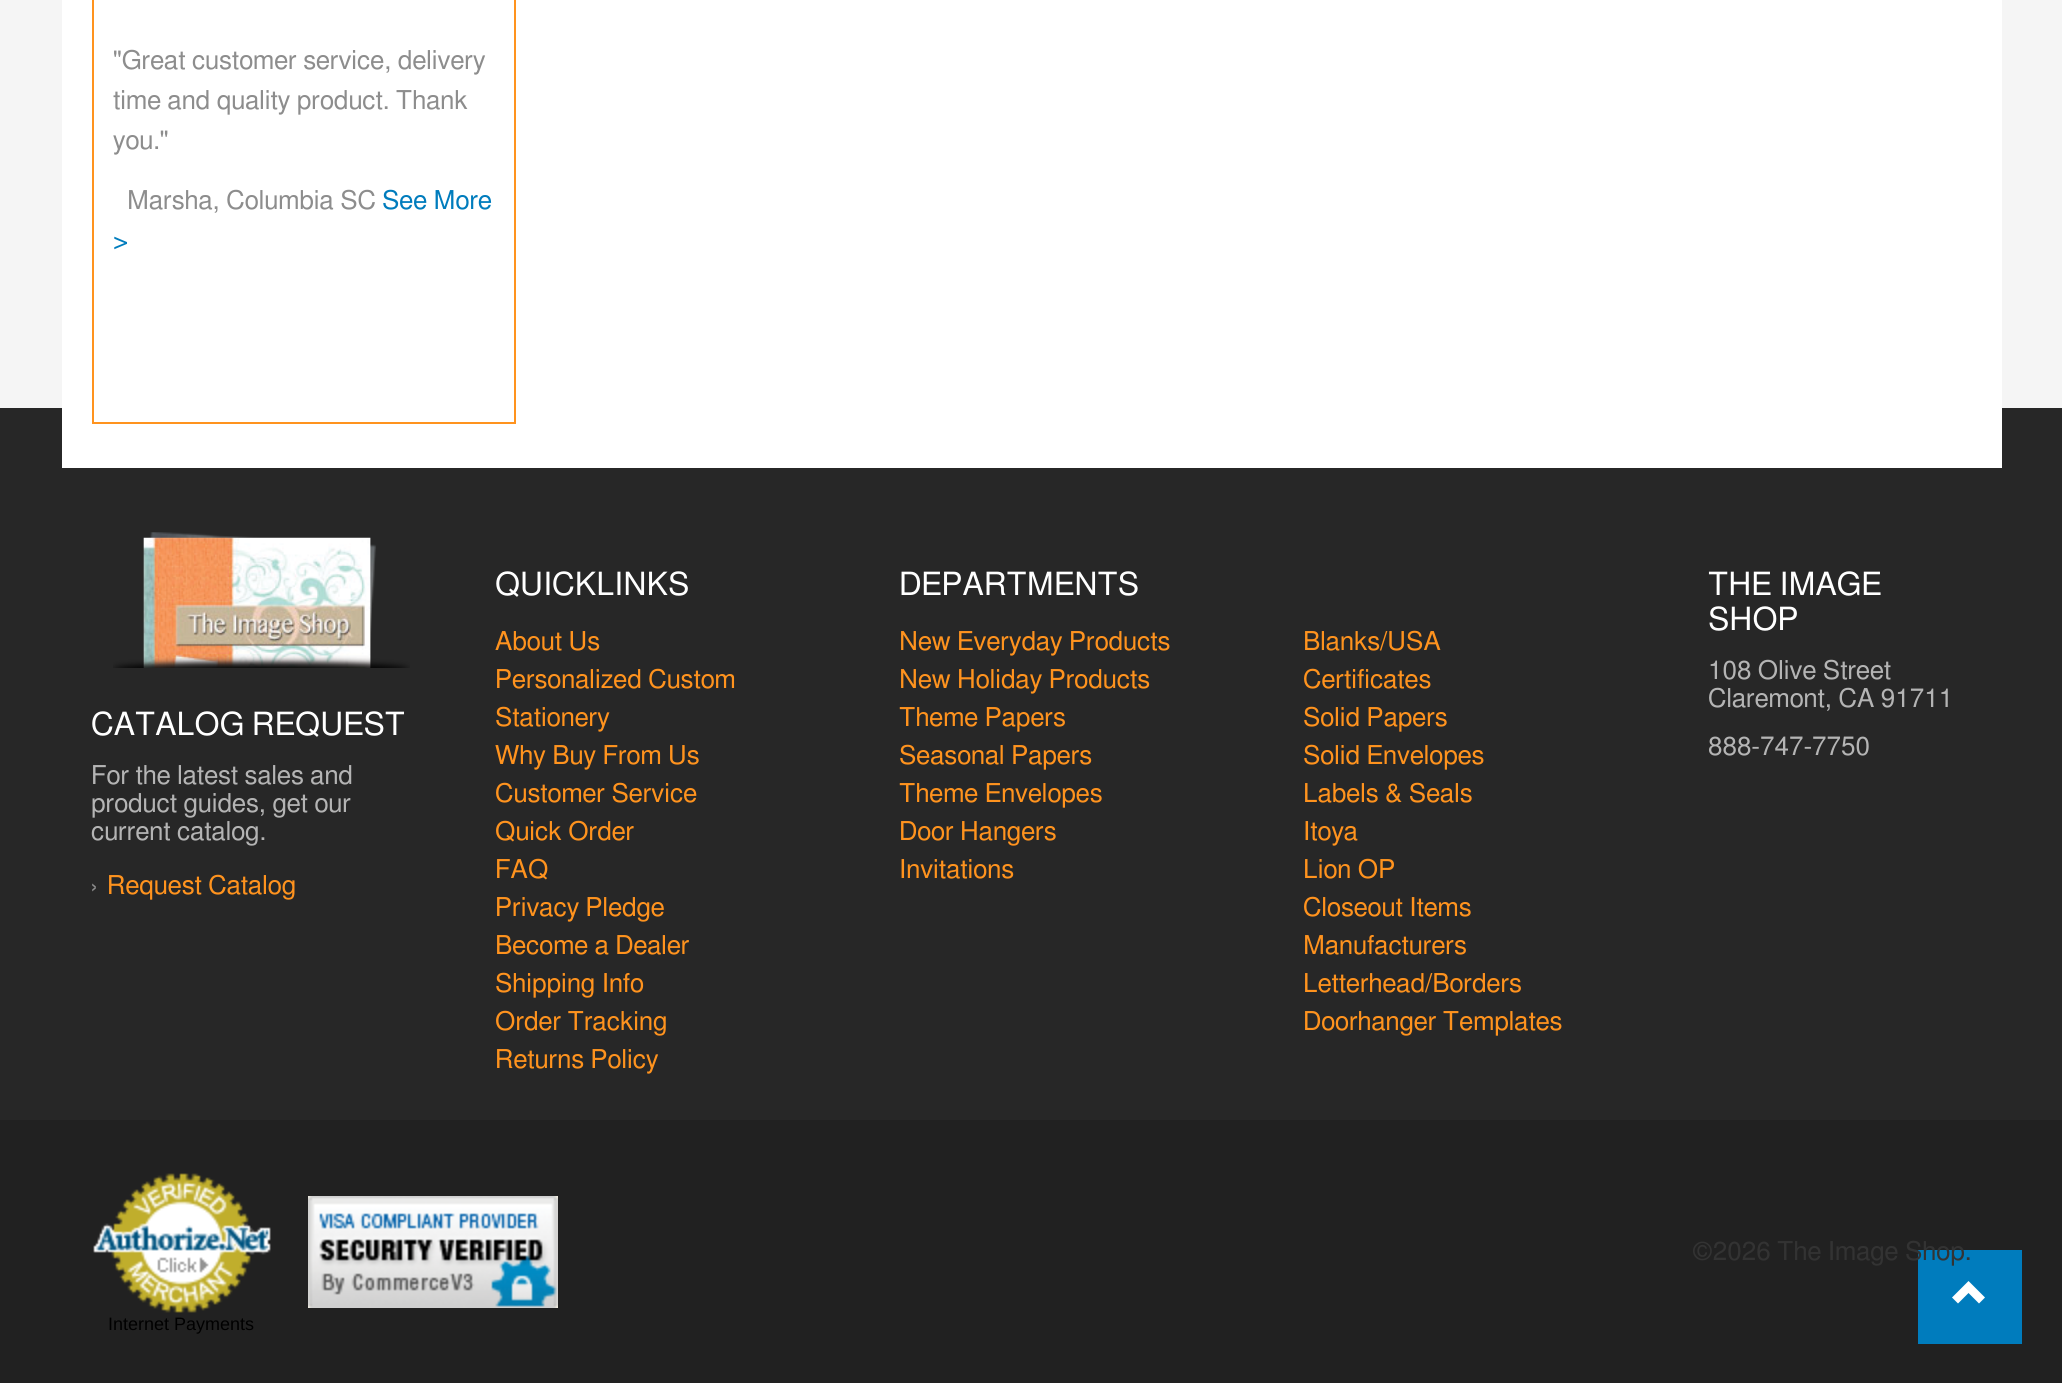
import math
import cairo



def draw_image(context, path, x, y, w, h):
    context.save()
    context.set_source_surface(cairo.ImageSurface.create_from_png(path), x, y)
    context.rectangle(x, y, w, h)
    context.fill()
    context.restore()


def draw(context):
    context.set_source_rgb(245 / 255, 245 / 255, 245 / 255)
    context.paint()
    context.set_source_rgb(39 / 255, 39 / 255, 39 / 255)
    context.rectangle(0, 408, 2062, 712)
    context.fill()
    context.set_source_rgb(1, 1, 1)
    context.rectangle(62, 0, 1940, 468)
    context.fill()
    context.rectangle(93, -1, 422, 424)
    context.set_source_rgb(1, 147 / 255, 30 / 255)
    context.stroke()
    context.set_source_rgb(33 / 255, 33 / 255, 33 / 255)
    context.rectangle(0, 1120, 2062, 263)
    context.fill()
    context.set_source_rgb(0, 124 / 255, 189 / 255)
    context.rectangle(1918, 1250, 104, 94)
    context.fill()
    context.set_source_rgb(1, 1, 1)
    context.new_path()
    context.move_to(1985, 1297.5)
    context.line_to(1979, 1303.5)
    context.line_to(1968.5, 1293)
    context.line_to(1958, 1303.5)
    context.line_to(1952, 1297.5)
    context.line_to(1968.5, 1281)
    context.close_path()
    context.fill()
    draw_image(context, "images/1.png", 113, 532, 297, 136)
    draw_image(context, "images/2.png", 308, 1196, 250, 112)
    draw_image(context, "images/3.png", 93, 1173, 178, 140)
    context.select_font_face("FreeSans")
    context.set_font_size(26)
    context.set_source_rgb(141 / 255, 141 / 255, 141 / 255)
    context.move_to(113, 69)
    context.show_text("\"Great customer service, delivery")
    context.move_to(113, 109)
    context.show_text("time and quality product. Thank")
    context.move_to(113, 149)
    context.show_text("you.\"")
    context.move_to(127, 209)
    context.show_text("Marsha, Columbia SC")
    context.set_source_rgb(0, 124 / 255, 189 / 255)
    context.move_to(382, 209)
    context.show_text("See More")
    context.move_to(113, 249)
    context.show_text(">")
    context.set_font_size(32)
    context.set_source_rgb(1, 1, 1)
    context.move_to(91, 735)
    context.show_text("CATALOG REQUEST")
    context.set_font_size(26)
    context.set_source_rgb(180 / 255, 180 / 255, 180 / 255)
    context.move_to(91, 784)
    context.show_text("For the latest sales and")
    context.move_to(91, 812)
    context.show_text("product guides, get our")
    context.move_to(91, 840)
    context.show_text("current catalog.")
    context.set_font_size(24)
    context.set_source_rgb(141 / 255, 141 / 255, 141 / 255)
    context.move_to(91, 894)
    context.show_text("›")
    context.set_font_size(26)
    context.set_source_rgb(1, 147 / 255, 30 / 255)
    context.move_to(107, 894)
    context.show_text("Request Catalog")
    context.set_font_size(32)
    context.set_source_rgb(1, 1, 1)
    context.move_to(495, 595)
    context.show_text("QUICKLINKS")
    context.set_font_size(26)
    context.set_source_rgb(1, 147 / 255, 30 / 255)
    context.move_to(495, 650)
    context.show_text("About Us")
    context.move_to(495, 688)
    context.show_text("Personalized Custom")
    context.move_to(495, 726)
    context.show_text("Stationery")
    context.move_to(495, 764)
    context.show_text("Why Buy From Us")
    context.move_to(495, 802)
    context.show_text("Customer Service")
    context.move_to(495, 840)
    context.show_text("Quick Order")
    context.move_to(495, 878)
    context.show_text("FAQ")
    context.move_to(495, 916)
    context.show_text("Privacy Pledge")
    context.move_to(495, 954)
    context.show_text("Become a Dealer")
    context.move_to(495, 992)
    context.show_text("Shipping Info")
    context.move_to(495, 1030)
    context.show_text("Order Tracking")
    context.move_to(495, 1068)
    context.show_text("Returns Policy")
    context.set_font_size(32)
    context.set_source_rgb(1, 1, 1)
    context.move_to(899, 595)
    context.show_text("DEPARTMENTS")
    context.set_font_size(26)
    context.set_source_rgb(1, 147 / 255, 30 / 255)
    context.move_to(899, 650)
    context.show_text("New Everyday Products")
    context.move_to(899, 688)
    context.show_text("New Holiday Products")
    context.move_to(899, 726)
    context.show_text("Theme Papers")
    context.move_to(899, 764)
    context.show_text("Seasonal Papers")
    context.move_to(899, 802)
    context.show_text("Theme Envelopes")
    context.move_to(899, 840)
    context.show_text("Door Hangers")
    context.move_to(899, 878)
    context.show_text("Invitations")
    context.move_to(1303, 650)
    context.show_text("Blanks/USA")
    context.move_to(1303, 688)
    context.show_text("Certificates")
    context.move_to(1303, 726)
    context.show_text("Solid Papers")
    context.move_to(1303, 764)
    context.show_text("Solid Envelopes")
    context.move_to(1303, 802)
    context.show_text("Labels & Seals")
    context.move_to(1303, 840)
    context.show_text("Itoya")
    context.move_to(1303, 878)
    context.show_text("Lion OP")
    context.move_to(1303, 916)
    context.show_text("Closeout Items")
    context.move_to(1303, 954)
    context.show_text("Manufacturers")
    context.move_to(1303, 992)
    context.show_text("Letterhead/Borders")
    context.move_to(1303, 1030)
    context.show_text("Doorhanger Templates")
    context.set_font_size(32)
    context.set_source_rgb(1, 1, 1)
    context.move_to(1708, 595)
    context.show_text("THE IMAGE")
    context.move_to(1708, 630)
    context.show_text("SHOP")
    context.set_font_size(26)
    context.set_source_rgb(180 / 255, 180 / 255, 180 / 255)
    context.move_to(1708, 679)
    context.show_text("108 Olive Street")
    context.move_to(1708, 707)
    context.show_text("Claremont, CA 91711")
    context.move_to(1708, 755)
    context.show_text("888-747-7750")
    context.set_source_rgb(51 / 255, 51 / 255, 51 / 255)
    context.move_to(1692, 1260)
    context.show_text("©2026 The Image Shop.")
    context.select_font_face("Liberation Sans")
    context.set_font_size(18)
    context.set_source_rgb(0, 0, 0)
    context.move_to(108, 1330)
    context.show_text("Internet Payments")


surface = cairo.ImageSurface(cairo.Format.RGB24, 2062, 1383)
context = cairo.Context(surface)
options = cairo.FontOptions()
options.set_hint_metrics(cairo.HintMetrics.OFF)
options.set_hint_style(cairo.HintStyle.NONE)
context.set_font_options(options)
context.set_miter_limit(4)
draw(context)
surface.write_to_png("out.png")
